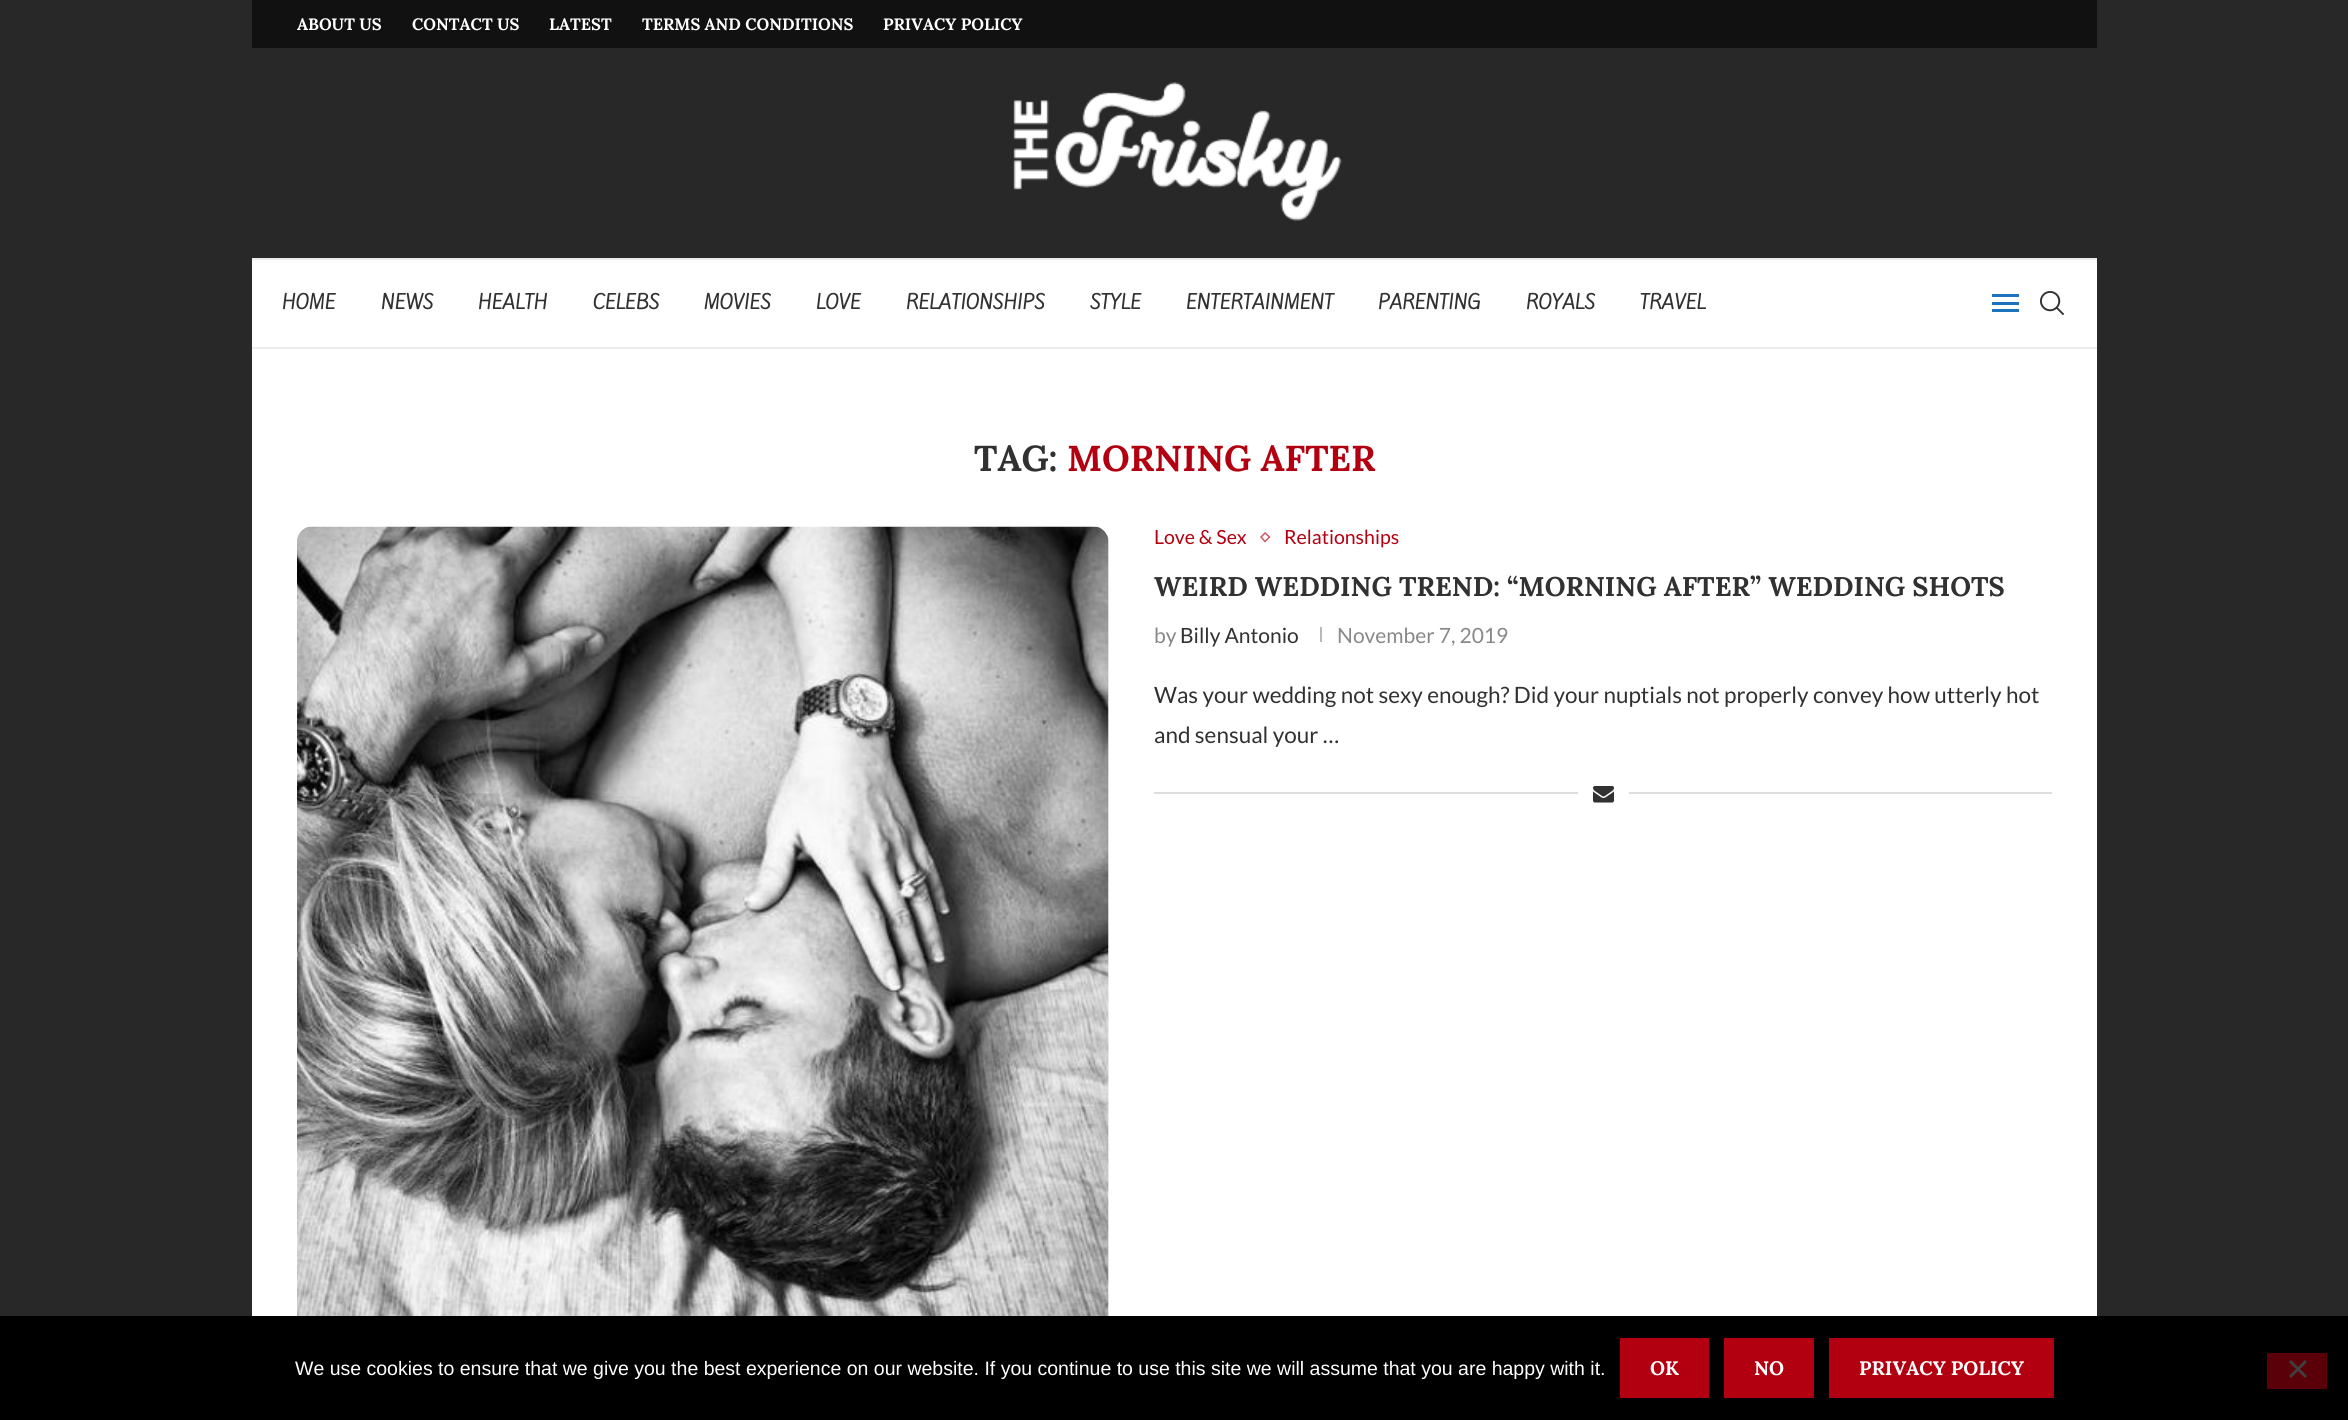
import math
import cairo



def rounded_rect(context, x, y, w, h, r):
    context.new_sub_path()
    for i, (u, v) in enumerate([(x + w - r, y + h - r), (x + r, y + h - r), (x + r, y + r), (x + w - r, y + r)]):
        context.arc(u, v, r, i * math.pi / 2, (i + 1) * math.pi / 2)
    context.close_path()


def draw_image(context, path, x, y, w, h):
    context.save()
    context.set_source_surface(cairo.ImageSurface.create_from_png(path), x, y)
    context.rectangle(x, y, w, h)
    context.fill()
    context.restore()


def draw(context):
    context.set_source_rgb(40 / 255, 40 / 255, 40 / 255)
    context.paint()
    context.set_source_rgb(1, 1, 1)
    context.rectangle(252, 260, 1845, 1056)
    context.fill()
    context.set_source_rgb(17 / 255, 17 / 255, 17 / 255)
    context.rectangle(252, 0, 1845, 48)
    context.fill()
    draw_image(context, "images/1.png", 1013, 82, 329, 139)
    context.set_source_rgb(236 / 255, 236 / 255, 236 / 255)
    context.rectangle(252, 258, 1845, 2)
    context.fill()
    context.rectangle(252, 347, 1845, 2)
    context.fill()
    context.set_source_rgb(30 / 255, 115 / 255, 190 / 255)
    context.rectangle(1992, 294, 27, 3)
    context.fill()
    context.rectangle(1992, 309, 27, 3)
    context.fill()
    context.rectangle(1992, 302, 27, 3)
    context.fill()
    draw_image(context, "images/2.png", 2040, 291, 24, 24)
    context.set_source_rgb(245 / 255, 245 / 255, 245 / 255)
    rounded_rect(context, 297, 527, 812, 811, 15)
    context.fill()
    draw_image(context, "images/3.png", 297, 526, 812, 790)
    context.new_path()
    context.move_to(1265, 533)
    context.line_to(1269.5, 537)
    context.line_to(1265, 541.5)
    context.line_to(1261, 537)
    context.close_path()
    context.set_source_rgb(206 / 255, 89 / 255, 100 / 255)
    context.set_line_width(1.5)
    context.stroke()
    context.set_source_rgb(184 / 255, 184 / 255, 184 / 255)
    context.rectangle(1320, 627, 2, 15)
    context.fill()
    context.set_source_rgb(222 / 255, 222 / 255, 222 / 255)
    context.rectangle(1154, 792, 898, 2)
    context.fill()
    context.set_source_rgb(1, 1, 1)
    context.rectangle(1578, 792, 51, 2)
    context.fill()
    draw_image(context, "images/4.png", 1593, 786, 21, 17)
    context.set_source_rgb(0, 0, 0)
    context.rectangle(0, 1316, 2348, 104)
    context.fill()
    context.set_source_rgb(179 / 255, 0, 16 / 255)
    context.rectangle(1620, 1338, 89, 60)
    context.fill()
    context.rectangle(1724, 1338, 90, 60)
    context.fill()
    context.rectangle(1829, 1338, 225, 60)
    context.fill()
    context.set_source_rgb(90 / 255, 0, 8 / 255)
    context.rectangle(2267, 1353, 60, 36)
    context.fill()
    context.set_source_rgb(64 / 255, 64 / 255, 64 / 255)
    context.new_path()
    context.move_to(2305, 1360)
    context.line_to(2307, 1362)
    context.line_to(2291, 1378)
    context.line_to(2289, 1376)
    context.close_path()
    context.fill()
    context.new_path()
    context.move_to(2289, 1362)
    context.line_to(2291, 1360)
    context.line_to(2307, 1376)
    context.line_to(2305, 1378)
    context.close_path()
    context.fill()
    context.select_font_face("Lora", cairo.FontSlant.NORMAL, cairo.FontWeight.BOLD)
    context.set_font_size(16.5)
    context.set_source_rgb(1, 1, 1)
    context.move_to(297, 30)
    context.show_text("ABOUT US")
    context.move_to(412, 30)
    context.show_text("CONTACT US")
    context.move_to(549, 30)
    context.show_text("LATEST")
    context.move_to(642, 30)
    context.show_text("TERMS AND CONDITIONS")
    context.move_to(883, 30)
    context.show_text("PRIVACY POLICY")
    context.select_font_face("Kite One", cairo.FontSlant.NORMAL, cairo.FontWeight.BOLD)
    context.set_font_size(18)
    context.set_source_rgb(49 / 255, 49 / 255, 49 / 255)
    context.move_to(282, 309)
    context.show_text("HOME")
    context.move_to(381, 309)
    context.show_text("NEWS")
    context.move_to(478, 309)
    context.show_text("HEALTH")
    context.move_to(593, 309)
    context.show_text("CELEBS")
    context.move_to(704, 309)
    context.show_text("MOVIES")
    context.move_to(816, 309)
    context.show_text("LOVE")
    context.move_to(906, 309)
    context.show_text("RELATIONSHIPS")
    context.move_to(1090, 309)
    context.show_text("STYLE")
    context.move_to(1186, 309)
    context.show_text("ENTERTAINMENT")
    context.move_to(1378, 309)
    context.show_text("PARENTING")
    context.move_to(1526, 309)
    context.show_text("ROYALS")
    context.move_to(1640, 309)
    context.show_text("TRAVEL")
    context.select_font_face("Lora", cairo.FontSlant.NORMAL, cairo.FontWeight.BOLD)
    context.set_font_size(36)
    context.move_to(974, 471)
    context.show_text("TAG:")
    context.set_source_rgb(179 / 255, 0, 16 / 255)
    context.move_to(1067, 471)
    context.show_text("MORNING AFTER")
    context.select_font_face("Lato")
    context.set_font_size(19.5)
    context.move_to(1154, 544)
    context.show_text("Love & Sex")
    context.move_to(1284, 544)
    context.show_text("Relationships")
    context.select_font_face("Lora", cairo.FontSlant.NORMAL, cairo.FontWeight.BOLD)
    context.set_font_size(27)
    context.set_source_rgb(49 / 255, 49 / 255, 49 / 255)
    context.move_to(1154, 596)
    context.show_text("WEIRD WEDDING TREND: “MORNING AFTER” WEDDING SHOTS")
    context.select_font_face("Lato")
    context.set_font_size(21)
    context.set_source_rgb(136 / 255, 136 / 255, 136 / 255)
    context.move_to(1154, 643)
    context.show_text("by")
    context.set_source_rgb(49 / 255, 49 / 255, 49 / 255)
    context.move_to(1180, 643)
    context.show_text("Billy Antonio")
    context.set_source_rgb(136 / 255, 136 / 255, 136 / 255)
    context.move_to(1337, 643)
    context.show_text("November 7, 2019")
    context.set_font_size(22.5)
    context.set_source_rgb(49 / 255, 49 / 255, 49 / 255)
    context.move_to(1154, 703)
    context.show_text("Was your wedding not sexy enough? Did your nuptials not properly convey how utterly hot")
    context.move_to(1154, 743)
    context.show_text("and sensual your …")
    context.select_font_face("Liberation Sans")
    context.set_font_size(19.5)
    context.set_source_rgb(1, 1, 1)
    context.move_to(295, 1375)
    context.show_text("We use cookies to ensure that we give you the best experience on our website. If you continue to use this site we will assume that you are happy with it.")
    context.select_font_face("Lora", cairo.FontSlant.NORMAL, cairo.FontWeight.BOLD)
    context.move_to(1650, 1375)
    context.show_text("OK")
    context.move_to(1754, 1375)
    context.show_text("NO")
    context.move_to(1859, 1375)
    context.show_text("PRIVACY POLICY")


surface = cairo.ImageSurface(cairo.Format.RGB24, 2348, 1420)
context = cairo.Context(surface)
options = cairo.FontOptions()
options.set_hint_metrics(cairo.HintMetrics.OFF)
options.set_hint_style(cairo.HintStyle.NONE)
context.set_font_options(options)
context.set_miter_limit(4)
draw(context)
surface.write_to_png("out.png")
